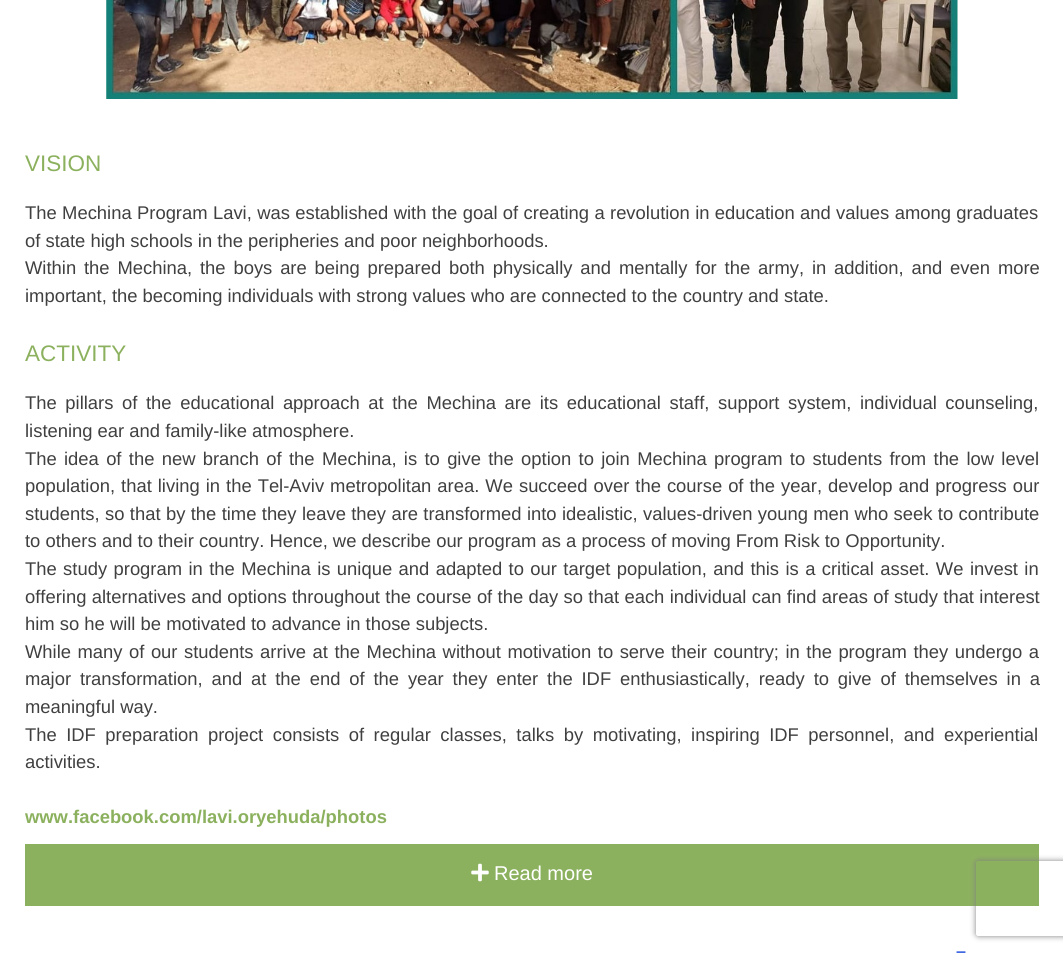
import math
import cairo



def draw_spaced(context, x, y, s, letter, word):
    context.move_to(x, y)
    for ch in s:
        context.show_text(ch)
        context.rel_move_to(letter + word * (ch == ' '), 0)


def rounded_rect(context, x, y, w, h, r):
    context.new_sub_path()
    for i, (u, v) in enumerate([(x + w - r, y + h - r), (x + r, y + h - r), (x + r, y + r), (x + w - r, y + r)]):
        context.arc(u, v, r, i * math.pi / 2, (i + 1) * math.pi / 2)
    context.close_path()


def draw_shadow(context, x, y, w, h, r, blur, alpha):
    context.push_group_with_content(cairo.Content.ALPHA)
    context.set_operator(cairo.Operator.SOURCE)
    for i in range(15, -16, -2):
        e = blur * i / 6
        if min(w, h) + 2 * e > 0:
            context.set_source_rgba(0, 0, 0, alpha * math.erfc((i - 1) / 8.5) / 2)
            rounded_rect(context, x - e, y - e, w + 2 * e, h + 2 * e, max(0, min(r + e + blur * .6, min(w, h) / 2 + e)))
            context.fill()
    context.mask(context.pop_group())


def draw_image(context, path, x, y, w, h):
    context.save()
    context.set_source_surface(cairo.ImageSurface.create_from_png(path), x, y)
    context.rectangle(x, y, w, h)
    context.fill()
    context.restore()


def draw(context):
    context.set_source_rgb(1, 1, 1)
    context.paint()
    draw_image(context, "images/1.png", 106, 0, 852, 99)
    context.set_source_rgb(140 / 255, 177 / 255, 94 / 255)
    context.rectangle(25, 844, 1014, 62)
    context.fill()
    draw_image(context, "images/2.png", 471, 863, 18, 19)
    context.save()
    context.set_fill_rule(cairo.FillRule.EVEN_ODD)
    context.new_path()
    context.move_to(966, 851)
    context.line_to(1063, 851)
    context.line_to(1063, 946)
    context.line_to(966, 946)
    context.close_path()
    context.move_to(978.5, 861)
    context.line_to(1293.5, 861)
    context.curve_to(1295, 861, 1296, 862, 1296, 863.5)
    context.line_to(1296, 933.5)
    context.curve_to(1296, 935, 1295, 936, 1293.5, 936)
    context.line_to(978.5, 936)
    context.curve_to(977, 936, 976, 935, 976, 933.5)
    context.line_to(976, 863.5)
    context.curve_to(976, 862, 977, 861, 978.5, 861)
    context.close_path()
    context.clip()
    context.set_source_rgb(128 / 255, 128 / 255, 128 / 255)
    draw_shadow(context, 976, 861, 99, 75, 2.5, 3, 1)
    context.restore()
    context.select_font_face("Liberation Sans")
    context.set_font_size(22.5)
    context.move_to(25, 171)
    context.show_text("VISION")
    context.set_font_size(18.4)
    context.set_source_rgb(64 / 255, 64 / 255, 64 / 255)
    draw_spaced(context, 25, 219, "The Mechina Program Lavi, was established with the goal of creating a revolution in education and values among graduates", 0, 0.25)
    context.move_to(25, 247)
    context.show_text("of state high schools in the peripheries and poor neighborhoods.")
    draw_spaced(context, 25, 274, "Within the Mechina, the boys are being prepared both physically and mentally for the army, in addition, and even more", 0, 2.75)
    context.move_to(25, 302)
    context.show_text("important, the becoming individuals with strong values who are connected to the country and state.")
    context.set_font_size(22.5)
    context.set_source_rgb(140 / 255, 177 / 255, 94 / 255)
    context.move_to(25, 361)
    context.show_text("ACTIVITY")
    context.set_font_size(18.4)
    context.set_source_rgb(64 / 255, 64 / 255, 64 / 255)
    draw_spaced(context, 25, 409, "The pillars of the educational approach at the Mechina are its educational staff, support system, individual counseling,", 0, 3.5)
    context.move_to(25, 437)
    context.show_text("listening ear and family-like atmosphere.")
    draw_spaced(context, 25, 465, "The idea of the new branch of the Mechina, is to give the option to join Mechina program to students from the low level", 0, 2.2)
    draw_spaced(context, 25, 492, "population, that living in the Tel-Aviv metropolitan area. We succeed over the course of the year, develop and progress our", 0, 0.9)
    draw_spaced(context, 25, 520, "students, so that by the time they leave they are transformed into idealistic, values-driven young men who seek to contribute", 0, 0.25)
    context.move_to(25, 547)
    context.show_text("to others and to their country. Hence, we describe our program as a process of moving From Risk to Opportunity.")
    draw_spaced(context, 25, 575, "The study program in the Mechina is unique and adapted to our target population, and this is a critical asset. We invest in", 0, 1.3)
    draw_spaced(context, 25, 603, "offering alternatives and options throughout the course of the day so that each individual can find areas of study that interest", 0, 0.25)
    context.move_to(25, 630)
    context.show_text("him so he will be motivated to advance in those subjects.")
    draw_spaced(context, 25, 658, "While many of our students arrive at the Mechina without motivation to serve their country; in the program they undergo a", 0, 1.4)
    draw_spaced(context, 25, 685, "major transformation, and at the end of the year they enter the IDF enthusiastically, ready to give of themselves in a", 0, 3.75)
    context.move_to(25, 713)
    context.show_text("meaningful way.")
    draw_spaced(context, 25, 741, "The IDF preparation project consists of regular classes, talks by motivating, inspiring IDF personnel, and experiential", 0, 4.4)
    context.move_to(25, 768)
    context.show_text("activities.")
    context.select_font_face("Liberation Sans", cairo.FontSlant.NORMAL, cairo.FontWeight.BOLD)
    context.set_source_rgb(140 / 255, 177 / 255, 94 / 255)
    context.move_to(25, 823)
    context.show_text("www.facebook.com/lavi.oryehuda/photos")
    context.select_font_face("Liberation Sans")
    context.set_font_size(20)
    context.set_source_rgb(1, 1, 1)
    context.move_to(494, 880)
    context.show_text("Read more")
    context.select_font_face("Liberation Sans", cairo.FontSlant.NORMAL, cairo.FontWeight.BOLD)
    context.set_font_size(18)
    context.set_source_rgb(65 / 255, 105 / 255, 225 / 255)
    context.move_to(956, 957)
    context.show_text("–")


surface = cairo.ImageSurface(cairo.Format.RGB24, 1063, 953)
context = cairo.Context(surface)
options = cairo.FontOptions()
options.set_hint_metrics(cairo.HintMetrics.OFF)
options.set_hint_style(cairo.HintStyle.NONE)
context.set_font_options(options)
context.set_miter_limit(4)
draw(context)
surface.write_to_png("out.png")
